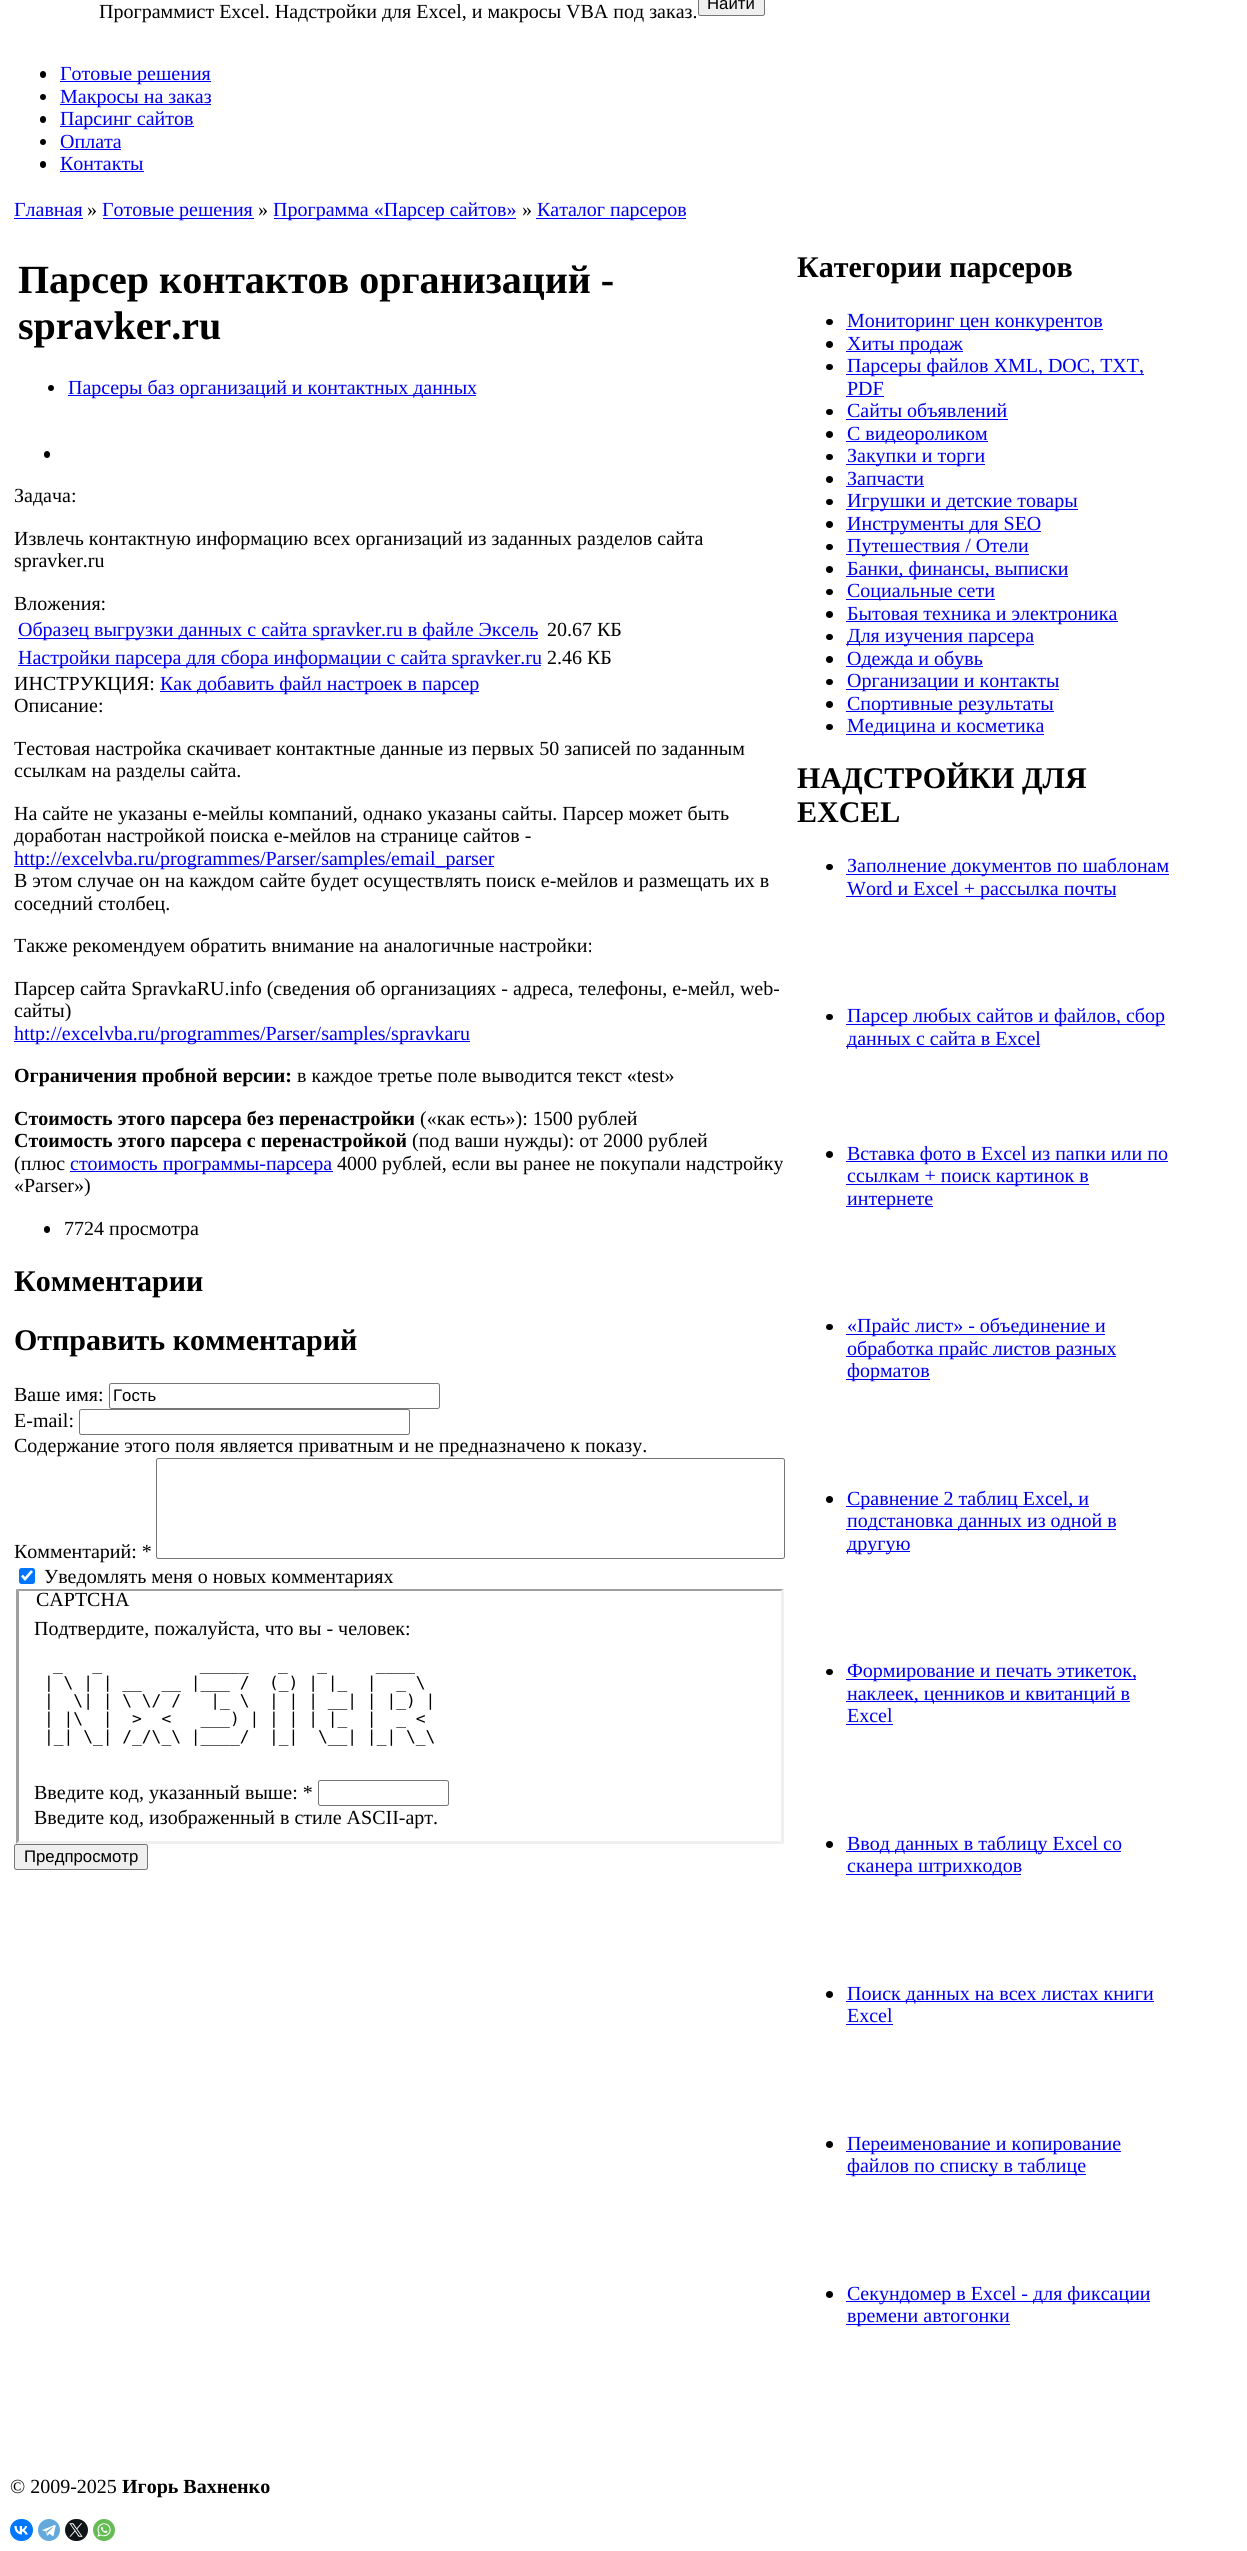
import math
import cairo



def rounded_rect(context, x, y, w, h, r):
    context.new_sub_path()
    for i, (u, v) in enumerate([(x + w - r, y + h - r), (x + r, y + h - r), (x + r, y + r), (x + w - r, y + r)]):
        context.arc(u, v, r, i * math.pi / 2, (i + 1) * math.pi / 2)
    context.close_path()


def draw_image(context, path, x, y, w, h):
    context.save()
    context.set_source_surface(cairo.ImageSurface.create_from_png(path), x, y)
    context.rectangle(x, y, w, h)
    context.fill()
    context.restore()


def draw(context):
    context.set_source_rgb(1, 1, 1)
    context.paint()
    context.set_source_rgb(239 / 255, 239 / 255, 239 / 255)
    rounded_rect(context, 698.5, -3.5, 66, 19, 2)
    context.fill_preserve()
    context.set_source_rgb(118 / 255, 118 / 255, 118 / 255)
    context.set_line_width(1)
    context.stroke()
    context.set_source_rgb(0, 0, 0)
    rounded_rect(context, 40, 71, 6, 7, 3)
    context.fill()
    context.set_source_rgb(0, 0, 238 / 255)
    context.rectangle(60, 81, 151, 1)
    context.fill()
    context.set_source_rgb(0, 0, 0)
    context.arc(43, 97, 3, 0, 2 * math.pi)
    context.fill()
    context.set_source_rgb(0, 0, 238 / 255)
    context.rectangle(60, 104, 151, 1)
    context.fill()
    context.set_source_rgb(0, 0, 0)
    rounded_rect(context, 40, 116, 6, 7, 3)
    context.fill()
    context.set_source_rgb(0, 0, 238 / 255)
    context.rectangle(60, 126, 134, 1)
    context.fill()
    context.set_source_rgb(0, 0, 0)
    context.arc(43, 142, 3, 0, 2 * math.pi)
    context.fill()
    context.set_source_rgb(0, 0, 238 / 255)
    context.rectangle(60, 149, 61, 1)
    context.fill()
    context.set_source_rgb(0, 0, 0)
    rounded_rect(context, 40, 161, 6, 7, 3)
    context.fill()
    context.set_source_rgb(0, 0, 238 / 255)
    context.rectangle(60, 171, 84, 1)
    context.fill()
    context.rectangle(14, 218, 69, 1)
    context.fill()
    context.rectangle(103, 218, 151, 1)
    context.fill()
    context.rectangle(274, 218, 242, 1)
    context.fill()
    context.rectangle(536, 218, 150, 1)
    context.fill()
    context.set_source_rgb(0, 0, 0)
    context.arc(51, 388, 3, 0, 2 * math.pi)
    context.fill()
    context.set_source_rgb(0, 0, 238 / 255)
    context.rectangle(68, 395, 408, 1)
    context.fill()
    context.set_source_rgb(0, 0, 0)
    rounded_rect(context, 44, 451, 6, 7, 3)
    context.fill()
    context.set_source_rgb(0, 0, 238 / 255)
    context.rectangle(18, 638, 520, 1)
    context.fill()
    context.rectangle(18, 665, 523, 1)
    context.fill()
    context.rectangle(160, 691, 319, 1)
    context.fill()
    context.rectangle(14, 866, 480, 1)
    context.fill()
    context.rectangle(14, 1041, 456, 1)
    context.fill()
    context.rectangle(70, 1171, 263, 1)
    context.fill()
    context.set_source_rgb(0, 0, 0)
    rounded_rect(context, 44, 1226, 6, 7, 3)
    context.fill()
    rounded_rect(context, 109.5, 1383.5, 330, 25, 2)
    context.set_source_rgb(118 / 255, 118 / 255, 118 / 255)
    context.stroke()
    rounded_rect(context, 79.5, 1409.5, 330, 25, 2)
    context.stroke()
    rounded_rect(context, 156.5, 1458.5, 628, 100, 2)
    context.stroke()
    context.set_source_rgb(0, 117 / 255, 1)
    rounded_rect(context, 19, 1568, 16, 16, 2.5)
    context.fill()
    context.new_path()
    context.move_to(22, 1575.5)
    context.line_to(25, 1579)
    context.line_to(32, 1571)
    context.set_source_rgb(1, 1, 1)
    context.set_line_width(2.6)
    context.stroke()
    context.set_source_rgb(159 / 255, 159 / 255, 159 / 255)
    context.new_path()
    context.move_to(16, 1589)
    context.line_to(784, 1589)
    context.line_to(781, 1591)
    context.line_to(19, 1591)
    context.close_path()
    context.fill()
    context.set_source_rgb(239 / 255, 239 / 255, 239 / 255)
    context.new_path()
    context.move_to(784, 1589)
    context.line_to(784, 1844)
    context.line_to(781, 1841)
    context.line_to(781, 1591)
    context.close_path()
    context.fill()
    context.new_path()
    context.move_to(784, 1844)
    context.line_to(16, 1844)
    context.line_to(19, 1841)
    context.line_to(781, 1841)
    context.close_path()
    context.fill()
    context.set_source_rgb(159 / 255, 159 / 255, 159 / 255)
    context.new_path()
    context.move_to(16, 1844)
    context.line_to(16, 1589)
    context.line_to(19, 1591)
    context.line_to(19, 1841)
    context.close_path()
    context.fill()
    rounded_rect(context, 318.5, 1780.5, 130, 25, 2)
    context.set_source_rgb(118 / 255, 118 / 255, 118 / 255)
    context.set_line_width(1)
    context.stroke()
    context.set_source_rgb(239 / 255, 239 / 255, 239 / 255)
    rounded_rect(context, 14.5, 1844.5, 133, 25, 2)
    context.fill_preserve()
    context.set_source_rgb(118 / 255, 118 / 255, 118 / 255)
    context.stroke()
    context.set_source_rgb(0, 0, 0)
    rounded_rect(context, 826, 319, 7, 6, 3)
    context.fill()
    context.set_source_rgb(0, 0, 238 / 255)
    context.rectangle(846, 329, 257, 1)
    context.fill()
    context.set_source_rgb(0, 0, 0)
    context.arc(829.5, 344.5, 3.5, 0, 2 * math.pi)
    context.fill()
    context.set_source_rgb(0, 0, 238 / 255)
    context.rectangle(846, 351, 117, 1)
    context.fill()
    context.set_source_rgb(0, 0, 0)
    rounded_rect(context, 826, 364, 7, 6, 3)
    context.fill()
    context.set_source_rgb(0, 0, 238 / 255)
    context.rectangle(846, 374, 298, 1)
    context.fill()
    context.rectangle(846, 396, 38, 1)
    context.fill()
    context.set_source_rgb(0, 0, 0)
    rounded_rect(context, 826, 409, 7, 6, 3)
    context.fill()
    context.set_source_rgb(0, 0, 238 / 255)
    context.rectangle(846, 419, 162, 1)
    context.fill()
    context.set_source_rgb(0, 0, 0)
    context.arc(829.5, 434.5, 3.5, 0, 2 * math.pi)
    context.fill()
    context.set_source_rgb(0, 0, 238 / 255)
    context.rectangle(846, 441, 142, 1)
    context.fill()
    context.set_source_rgb(0, 0, 0)
    rounded_rect(context, 826, 454, 7, 6, 3)
    context.fill()
    context.set_source_rgb(0, 0, 238 / 255)
    context.rectangle(846, 464, 139, 1)
    context.fill()
    context.set_source_rgb(0, 0, 0)
    context.arc(829.5, 479.5, 3.5, 0, 2 * math.pi)
    context.fill()
    context.set_source_rgb(0, 0, 238 / 255)
    context.rectangle(846, 486, 78, 1)
    context.fill()
    context.set_source_rgb(0, 0, 0)
    rounded_rect(context, 826, 499, 7, 6, 3)
    context.fill()
    context.set_source_rgb(0, 0, 238 / 255)
    context.rectangle(846, 509, 232, 1)
    context.fill()
    context.set_source_rgb(0, 0, 0)
    context.arc(829.5, 524.5, 3.5, 0, 2 * math.pi)
    context.fill()
    context.set_source_rgb(0, 0, 238 / 255)
    context.rectangle(846, 531, 195, 1)
    context.fill()
    context.set_source_rgb(0, 0, 0)
    rounded_rect(context, 826, 544, 7, 6, 3)
    context.fill()
    context.set_source_rgb(0, 0, 238 / 255)
    context.rectangle(846, 554, 183, 1)
    context.fill()
    context.set_source_rgb(0, 0, 0)
    context.arc(829.5, 569.5, 3.5, 0, 2 * math.pi)
    context.fill()
    context.set_source_rgb(0, 0, 238 / 255)
    context.rectangle(846, 576, 222, 1)
    context.fill()
    context.set_source_rgb(0, 0, 0)
    rounded_rect(context, 826, 589, 7, 6, 3)
    context.fill()
    context.set_source_rgb(0, 0, 238 / 255)
    context.rectangle(846, 599, 149, 1)
    context.fill()
    context.set_source_rgb(0, 0, 0)
    context.arc(829.5, 614.5, 3.5, 0, 2 * math.pi)
    context.fill()
    context.set_source_rgb(0, 0, 238 / 255)
    context.rectangle(846, 621, 272, 1)
    context.fill()
    context.set_source_rgb(0, 0, 0)
    rounded_rect(context, 826, 634, 7, 6, 3)
    context.fill()
    context.set_source_rgb(0, 0, 238 / 255)
    context.rectangle(846, 644, 188, 1)
    context.fill()
    context.set_source_rgb(0, 0, 0)
    context.arc(829.5, 659.5, 3.5, 0, 2 * math.pi)
    context.fill()
    context.set_source_rgb(0, 0, 238 / 255)
    context.rectangle(846, 666, 137, 1)
    context.fill()
    context.set_source_rgb(0, 0, 0)
    rounded_rect(context, 826, 679, 7, 6, 3)
    context.fill()
    context.set_source_rgb(0, 0, 238 / 255)
    context.rectangle(846, 689, 213, 1)
    context.fill()
    context.set_source_rgb(0, 0, 0)
    context.arc(829.5, 704.5, 3.5, 0, 2 * math.pi)
    context.fill()
    context.set_source_rgb(0, 0, 238 / 255)
    context.rectangle(846, 711, 208, 1)
    context.fill()
    context.set_source_rgb(0, 0, 0)
    rounded_rect(context, 826, 724, 7, 6, 3)
    context.fill()
    context.set_source_rgb(0, 0, 238 / 255)
    context.rectangle(846, 734, 198, 1)
    context.fill()
    context.set_source_rgb(0, 0, 0)
    rounded_rect(context, 826, 864, 7, 6, 3)
    context.fill()
    context.set_source_rgb(0, 0, 238 / 255)
    context.rectangle(846, 874, 323, 1)
    context.fill()
    context.rectangle(846, 896, 270, 1)
    context.fill()
    context.set_source_rgb(0, 0, 0)
    rounded_rect(context, 826, 1014, 7, 6, 3)
    context.fill()
    context.set_source_rgb(0, 0, 238 / 255)
    context.rectangle(846, 1024, 319, 1)
    context.fill()
    context.rectangle(846, 1046, 194, 1)
    context.fill()
    context.set_source_rgb(0, 0, 0)
    context.arc(829.5, 1154.5, 3.5, 0, 2 * math.pi)
    context.fill()
    context.set_source_rgb(0, 0, 238 / 255)
    context.rectangle(846, 1161, 322, 1)
    context.fill()
    context.rectangle(846, 1184, 243, 1)
    context.fill()
    context.rectangle(846, 1206, 87, 1)
    context.fill()
    context.set_source_rgb(0, 0, 0)
    rounded_rect(context, 826, 1324, 7, 6, 3)
    context.fill()
    context.set_source_rgb(0, 0, 238 / 255)
    context.rectangle(846, 1334, 259, 1)
    context.fill()
    context.rectangle(846, 1356, 270, 1)
    context.fill()
    context.rectangle(846, 1379, 84, 1)
    context.fill()
    context.set_source_rgb(0, 0, 0)
    context.arc(829.5, 1499.5, 3.5, 0, 2 * math.pi)
    context.fill()
    context.set_source_rgb(0, 0, 238 / 255)
    context.rectangle(846, 1506, 243, 1)
    context.fill()
    context.rectangle(846, 1529, 270, 1)
    context.fill()
    context.rectangle(846, 1551, 64, 1)
    context.fill()
    context.set_source_rgb(0, 0, 0)
    rounded_rect(context, 826, 1669, 7, 6, 3)
    context.fill()
    context.set_source_rgb(0, 0, 238 / 255)
    context.rectangle(846, 1679, 290, 1)
    context.fill()
    context.rectangle(846, 1701, 284, 1)
    context.fill()
    context.rectangle(846, 1724, 47, 1)
    context.fill()
    context.set_source_rgb(0, 0, 0)
    context.arc(829.5, 1844.5, 3.5, 0, 2 * math.pi)
    context.fill()
    context.set_source_rgb(0, 0, 238 / 255)
    context.rectangle(846, 1851, 275, 1)
    context.fill()
    context.rectangle(846, 1874, 175, 1)
    context.fill()
    context.set_source_rgb(0, 0, 0)
    context.arc(829.5, 1994.5, 3.5, 0, 2 * math.pi)
    context.fill()
    context.set_source_rgb(0, 0, 238 / 255)
    context.rectangle(846, 2001, 308, 1)
    context.fill()
    context.rectangle(846, 2024, 47, 1)
    context.fill()
    context.set_source_rgb(0, 0, 0)
    context.arc(829.5, 2144.5, 3.5, 0, 2 * math.pi)
    context.fill()
    context.set_source_rgb(0, 0, 238 / 255)
    context.rectangle(846, 2151, 275, 1)
    context.fill()
    context.rectangle(846, 2174, 240, 1)
    context.fill()
    context.set_source_rgb(0, 0, 0)
    context.arc(829.5, 2294.5, 3.5, 0, 2 * math.pi)
    context.fill()
    context.set_source_rgb(0, 0, 238 / 255)
    context.rectangle(846, 2301, 304, 1)
    context.fill()
    context.rectangle(846, 2324, 164, 1)
    context.fill()
    context.set_source_rgb(0, 119 / 255, 1)
    rounded_rect(context, 10, 2519, 23, 22, 11)
    context.fill()
    draw_image(context, "images/1.png", 14, 2526, 14, 9)
    context.set_source_rgb(100 / 255, 169 / 255, 220 / 255)
    context.arc(49, 2530, 11, 0, 2 * math.pi)
    context.fill()
    draw_image(context, "images/2.png", 42, 2525, 14, 12)
    context.set_source_rgb(15 / 255, 20 / 255, 25 / 255)
    rounded_rect(context, 65, 2519, 23, 22, 11)
    context.fill()
    draw_image(context, "images/3.png", 69, 2523, 14, 14)
    context.set_source_rgb(101 / 255, 188 / 255, 84 / 255)
    context.arc(104, 2530, 11, 0, 2 * math.pi)
    context.fill()
    draw_image(context, "images/4.png", 97, 2523, 14, 14)
    context.select_font_face("Liberation Serif")
    context.set_font_size(20)
    context.set_source_rgb(0, 0, 0)
    context.move_to(99, 18)
    context.show_text("Программист Excel. Надстройки для Excel, и макросы VBA под заказ.")
    context.select_font_face("Liberation Sans")
    context.set_font_size(16.75)
    context.move_to(707, 9)
    context.show_text("Найти")
    context.select_font_face("Liberation Serif")
    context.set_font_size(20)
    context.set_source_rgb(0, 0, 238 / 255)
    context.move_to(60, 80)
    context.show_text("Готовые решения")
    context.move_to(60, 103)
    context.show_text("Макросы на заказ")
    context.move_to(60, 125)
    context.show_text("Парсинг сайтов")
    context.move_to(60, 148)
    context.show_text("Оплата")
    context.move_to(60, 170)
    context.show_text("Контакты")
    context.move_to(14, 216)
    context.show_text("Главная")
    context.set_source_rgb(0, 0, 0)
    context.move_to(87, 216)
    context.show_text("»")
    context.set_source_rgb(0, 0, 238 / 255)
    context.move_to(102, 216)
    context.show_text("Готовые решения")
    context.set_source_rgb(0, 0, 0)
    context.move_to(258, 216)
    context.show_text("»")
    context.set_source_rgb(0, 0, 238 / 255)
    context.move_to(273, 216)
    context.show_text("Программа «Парсер сайтов»")
    context.set_source_rgb(0, 0, 0)
    context.move_to(522, 216)
    context.show_text("»")
    context.set_source_rgb(0, 0, 238 / 255)
    context.move_to(537, 216)
    context.show_text("Каталог парсеров")
    context.select_font_face("Liberation Serif", cairo.FontSlant.NORMAL, cairo.FontWeight.BOLD)
    context.set_font_size(40)
    context.set_source_rgb(0, 0, 0)
    context.move_to(18, 293)
    context.show_text("Парсер контактов организаций -")
    context.move_to(18, 339)
    context.show_text("spravker.ru")
    context.select_font_face("Liberation Serif")
    context.set_font_size(20)
    context.set_source_rgb(0, 0, 238 / 255)
    context.move_to(68, 394)
    context.show_text("Парсеры баз организаций и контактных данных")
    context.set_source_rgb(0, 0, 0)
    context.move_to(14, 502)
    context.show_text("Задача:")
    context.move_to(14, 545)
    context.show_text("Извлечь контактную информацию всех организаций из заданных разделов сайта")
    context.move_to(14, 567)
    context.show_text("spravker.ru")
    context.move_to(14, 610)
    context.show_text("Вложения:")
    context.set_source_rgb(0, 0, 238 / 255)
    context.move_to(18, 636)
    context.show_text("Образец выгрузки данных с сайта spravker.ru в файле Эксель")
    context.set_source_rgb(0, 0, 0)
    context.move_to(547, 636)
    context.show_text("20.67 КБ")
    context.set_source_rgb(0, 0, 238 / 255)
    context.move_to(18, 664)
    context.show_text("Настройки парсера для сбора информации с сайта spravker.ru")
    context.set_source_rgb(0, 0, 0)
    context.move_to(547, 664)
    context.show_text("2.46 КБ")
    context.move_to(14, 690)
    context.show_text("ИНСТРУКЦИЯ:")
    context.set_source_rgb(0, 0, 238 / 255)
    context.move_to(160, 690)
    context.show_text("Как добавить файл настроек в парсер")
    context.set_source_rgb(0, 0, 0)
    context.move_to(14, 712)
    context.show_text("Описание:")
    context.move_to(14, 755)
    context.show_text("Тестовая настройка скачивает контактные данные из первых 50 записей по заданным")
    context.move_to(14, 777)
    context.show_text("ссылкам на разделы сайта.")
    context.move_to(14, 820)
    context.show_text("На сайте не указаны е-мейлы компаний, однако указаны сайты. Парсер может быть")
    context.move_to(14, 842)
    context.show_text("доработан настройкой поиска е-мейлов на странице сайтов -")
    context.set_source_rgb(0, 0, 238 / 255)
    context.move_to(14, 865)
    context.show_text("http://excelvba.ru/programmes/Parser/samples/email_parser")
    context.set_source_rgb(0, 0, 0)
    context.move_to(14, 887)
    context.show_text("В этом случае он на каждом сайте будет осуществлять поиск е-мейлов и размещать их в")
    context.move_to(14, 910)
    context.show_text("соседний столбец.")
    context.move_to(14, 952)
    context.show_text("Также рекомендуем обратить внимание на аналогичные настройки:")
    context.move_to(14, 995)
    context.show_text("Парсер сайта SpravkaRU.info (сведения об организациях - адреса, телефоны, е-мейл, web-")
    context.move_to(14, 1017)
    context.show_text("сайты)")
    context.set_source_rgb(0, 0, 238 / 255)
    context.move_to(14, 1040)
    context.show_text("http://excelvba.ru/programmes/Parser/samples/spravkaru")
    context.select_font_face("Liberation Serif", cairo.FontSlant.NORMAL, cairo.FontWeight.BOLD)
    context.set_source_rgb(0, 0, 0)
    context.move_to(14, 1082)
    context.show_text("Ограничения пробной версии:")
    context.select_font_face("Liberation Serif")
    context.move_to(297, 1082)
    context.show_text("в каждое третье поле выводится текст «test»")
    context.select_font_face("Liberation Serif", cairo.FontSlant.NORMAL, cairo.FontWeight.BOLD)
    context.move_to(14, 1125)
    context.show_text("Стоимость этого парсера без перенастройки")
    context.select_font_face("Liberation Serif")
    context.move_to(420, 1125)
    context.show_text("(«как есть»): 1500 рублей")
    context.select_font_face("Liberation Serif", cairo.FontSlant.NORMAL, cairo.FontWeight.BOLD)
    context.move_to(14, 1147)
    context.show_text("Стоимость этого парсера c перенастройкой")
    context.select_font_face("Liberation Serif")
    context.move_to(412, 1147)
    context.show_text("(под ваши нужды): от 2000 рублей")
    context.move_to(14, 1170)
    context.show_text("(плюс")
    context.set_source_rgb(0, 0, 238 / 255)
    context.move_to(70, 1170)
    context.show_text("стоимость программы-парсера")
    context.set_source_rgb(0, 0, 0)
    context.move_to(337, 1170)
    context.show_text("4000 рублей, если вы ранее не покупали надстройку")
    context.move_to(14, 1192)
    context.show_text("«Parser»)")
    context.move_to(64, 1235)
    context.show_text("7724 просмотра")
    context.select_font_face("Liberation Serif", cairo.FontSlant.NORMAL, cairo.FontWeight.BOLD)
    context.set_font_size(30)
    context.move_to(14, 1291)
    context.show_text("Комментарии")
    context.move_to(14, 1350)
    context.show_text("Отправить комментарий")
    context.select_font_face("Liberation Serif")
    context.set_font_size(20)
    context.move_to(14, 1401)
    context.show_text("Ваше имя:")
    context.select_font_face("Liberation Sans")
    context.set_font_size(16.75)
    context.move_to(113, 1401)
    context.show_text("Гость")
    context.select_font_face("Liberation Serif")
    context.set_font_size(20)
    context.move_to(14, 1427)
    context.show_text("E-mail:")
    context.move_to(14, 1452)
    context.show_text("Содержание этого поля является приватным и не предназначено к показу.")
    context.move_to(14, 1558)
    context.show_text("Комментарий: *")
    context.move_to(44, 1583)
    context.show_text("Уведомлять меня о новых комментариях")
    context.move_to(36, 1606)
    context.show_text("CAPTCHA")
    context.move_to(34, 1635)
    context.show_text("Подтвердите, пожалуйста, что вы - человек:")
    context.select_font_face("DejaVu Sans Mono")
    context.set_font_size(16.25)
    context.move_to(53, 1670)
    context.show_text("_   _          _____   _   _     ____")
    context.move_to(44, 1688)
    context.show_text("| \\ | | __  __ |___ /  (_) | |_  |  _ \\")
    context.move_to(44, 1706)
    context.show_text("|  \\| | \\ \\/ /   |_ \\  | | | __| | |_) |")
    context.move_to(44, 1724)
    context.show_text("| |\\  |  >  <   ___) | | | | |_  |  _ <")
    context.move_to(44, 1742)
    context.show_text("|_| \\_| /_/\\_\\ |____/  |_|  \\__| |_| \\_\\")
    context.select_font_face("Liberation Serif")
    context.set_font_size(20)
    context.move_to(34, 1799)
    context.show_text("Введите код, указанный выше: *")
    context.move_to(34, 1824)
    context.show_text("Введите код, изображенный в стиле ASCII-арт.")
    context.select_font_face("Liberation Sans")
    context.set_font_size(16.75)
    context.move_to(24, 1862)
    context.show_text("Предпросмотр")
    context.select_font_face("Liberation Serif", cairo.FontSlant.NORMAL, cairo.FontWeight.BOLD)
    context.set_font_size(30)
    context.move_to(797, 277)
    context.show_text("Категории парсеров")
    context.select_font_face("Liberation Serif")
    context.set_font_size(20)
    context.set_source_rgb(0, 0, 238 / 255)
    context.move_to(847, 327)
    context.show_text("Мониторинг цен конкурентов")
    context.move_to(847, 350)
    context.show_text("Хиты продаж")
    context.move_to(847, 372)
    context.show_text("Парсеры файлов XML, DOC, TXT,")
    context.move_to(847, 395)
    context.show_text("PDF")
    context.move_to(847, 417)
    context.show_text("Сайты объявлений")
    context.move_to(847, 440)
    context.show_text("С видеороликом")
    context.move_to(847, 462)
    context.show_text("Закупки и торги")
    context.move_to(847, 485)
    context.show_text("Запчасти")
    context.move_to(847, 507)
    context.show_text("Игрушки и детские товары")
    context.move_to(847, 530)
    context.show_text("Инструменты для SEO")
    context.move_to(847, 552)
    context.show_text("Путешествия / Отели")
    context.move_to(847, 575)
    context.show_text("Банки, финансы, выписки")
    context.move_to(847, 597)
    context.show_text("Социальные сети")
    context.move_to(847, 620)
    context.show_text("Бытовая техника и электроника")
    context.move_to(847, 642)
    context.show_text("Для изучения парсера")
    context.move_to(847, 665)
    context.show_text("Одежда и обувь")
    context.move_to(847, 687)
    context.show_text("Организации и контакты")
    context.move_to(847, 710)
    context.show_text("Спортивные результаты")
    context.move_to(847, 732)
    context.show_text("Медицина и косметика")
    context.select_font_face("Liberation Serif", cairo.FontSlant.NORMAL, cairo.FontWeight.BOLD)
    context.set_font_size(30)
    context.set_source_rgb(0, 0, 0)
    context.move_to(797, 788)
    context.show_text("НАДСТРОЙКИ ДЛЯ")
    context.move_to(797, 822)
    context.show_text("EXCEL")
    context.select_font_face("Liberation Serif")
    context.set_font_size(20)
    context.set_source_rgb(0, 0, 238 / 255)
    context.move_to(847, 872)
    context.show_text("Заполнение документов по шаблонам")
    context.move_to(847, 895)
    context.show_text("Word и Excel + рассылка почты")
    context.move_to(847, 1022)
    context.show_text("Парсер любых сайтов и файлов, сбор")
    context.move_to(847, 1045)
    context.show_text("данных с сайта в Excel")
    context.move_to(847, 1160)
    context.show_text("Вставка фото в Excel из папки или по")
    context.move_to(847, 1182)
    context.show_text("ссылкам + поиск картинок в")
    context.move_to(847, 1205)
    context.show_text("интернете")
    context.move_to(847, 1332)
    context.show_text("«Прайс лист» - объединение и")
    context.move_to(847, 1355)
    context.show_text("обработка прайс листов разных")
    context.move_to(847, 1377)
    context.show_text("форматов")
    context.move_to(847, 1505)
    context.show_text("Сравнение 2 таблиц Excel, и")
    context.move_to(847, 1527)
    context.show_text("подстановка данных из одной в")
    context.move_to(847, 1550)
    context.show_text("другую")
    context.move_to(847, 1677)
    context.show_text("Формирование и печать этикеток,")
    context.move_to(847, 1700)
    context.show_text("наклеек, ценников и квитанций в")
    context.move_to(847, 1722)
    context.show_text("Excel")
    context.move_to(847, 1850)
    context.show_text("Ввод данных в таблицу Excel со")
    context.move_to(847, 1872)
    context.show_text("сканера штрихкодов")
    context.move_to(847, 2000)
    context.show_text("Поиск данных на всех листах книги")
    context.move_to(847, 2022)
    context.show_text("Excel")
    context.move_to(847, 2150)
    context.show_text("Переименование и копирование")
    context.move_to(847, 2172)
    context.show_text("файлов по списку в таблице")
    context.move_to(847, 2300)
    context.show_text("Секундомер в Excel - для фиксации")
    context.move_to(847, 2322)
    context.show_text("времени автогонки")
    context.set_source_rgb(0, 0, 0)
    context.move_to(10, 2493)
    context.show_text("© 2009-2025")
    context.select_font_face("Liberation Serif", cairo.FontSlant.NORMAL, cairo.FontWeight.BOLD)
    context.move_to(122, 2493)
    context.show_text("Игорь Вахненко")


surface = cairo.ImageSurface(cairo.Format.RGB24, 1247, 2551)
context = cairo.Context(surface)
options = cairo.FontOptions()
options.set_hint_metrics(cairo.HintMetrics.OFF)
options.set_hint_style(cairo.HintStyle.NONE)
context.set_font_options(options)
context.set_miter_limit(4)
draw(context)
surface.write_to_png("out.png")
